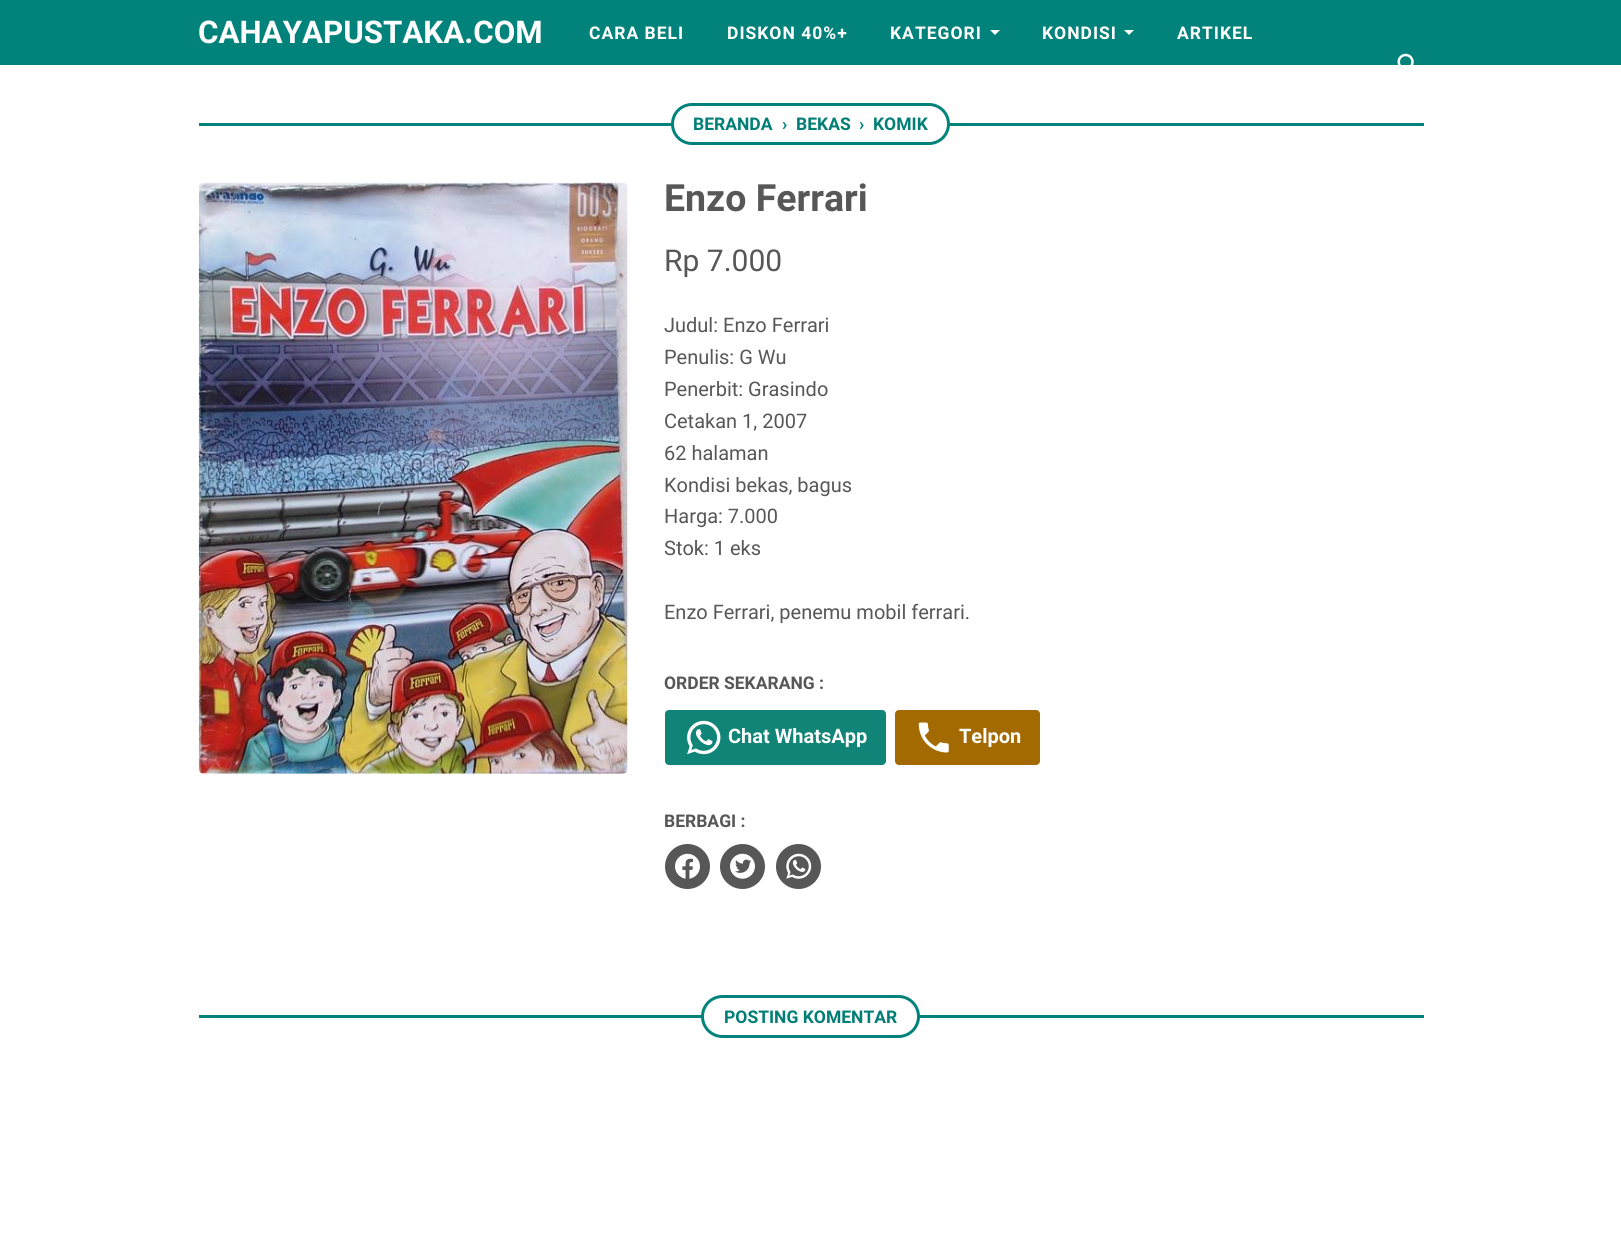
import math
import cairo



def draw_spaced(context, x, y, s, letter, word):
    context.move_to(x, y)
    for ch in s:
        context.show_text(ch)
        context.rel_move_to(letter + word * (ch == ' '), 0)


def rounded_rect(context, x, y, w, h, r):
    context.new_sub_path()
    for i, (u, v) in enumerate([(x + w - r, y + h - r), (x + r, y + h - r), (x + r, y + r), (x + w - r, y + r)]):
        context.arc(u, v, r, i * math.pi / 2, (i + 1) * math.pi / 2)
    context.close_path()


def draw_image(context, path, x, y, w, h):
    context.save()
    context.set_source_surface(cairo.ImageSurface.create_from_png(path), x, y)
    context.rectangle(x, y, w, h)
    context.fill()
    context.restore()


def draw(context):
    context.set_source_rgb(1, 1, 1)
    context.paint()
    context.set_source_rgb(1 / 255, 131 / 255, 123 / 255)
    context.rectangle(0, 0, 1621, 65)
    context.fill()
    context.set_source_rgb(1, 1, 1)
    context.new_path()
    context.move_to(990, 30)
    context.line_to(1000, 30)
    context.line_to(995, 35)
    context.close_path()
    context.fill()
    context.new_path()
    context.move_to(1124, 30)
    context.line_to(1134, 30)
    context.line_to(1129, 35)
    context.close_path()
    context.fill()
    draw_image(context, "images/1.png", 1397, 53, 17, 12)
    context.set_source_rgb(1 / 255, 131 / 255, 123 / 255)
    context.rectangle(199, 123, 1225, 3)
    context.fill()
    context.set_source_rgb(1, 1, 1)
    rounded_rect(context, 672.5, 104.5, 276, 39, 19.5)
    context.fill_preserve()
    context.set_source_rgb(1 / 255, 131 / 255, 123 / 255)
    context.set_line_width(3)
    context.stroke()
    draw_image(context, "images/2.png", 198, 182, 430, 592)
    context.set_source_rgb(16 / 255, 132 / 255, 118 / 255)
    rounded_rect(context, 665, 710, 221, 55, 4)
    context.fill()
    draw_image(context, "images/3.png", 687, 720, 34, 35)
    context.set_source_rgb(162 / 255, 106 / 255, 1 / 255)
    rounded_rect(context, 895, 710, 145, 55, 4)
    context.fill()
    draw_image(context, "images/4.png", 918, 722, 31, 31)
    context.set_source_rgb(87 / 255, 87 / 255, 87 / 255)
    context.arc(687.5, 866.5, 22.5, 0, 2 * math.pi)
    context.fill()
    draw_image(context, "images/5.png", 675, 853, 25, 26)
    context.arc(742.5, 866.5, 22.5, 0, 2 * math.pi)
    context.fill()
    draw_image(context, "images/6.png", 730, 853, 25, 26)
    context.arc(798.5, 866.5, 22.5, 0, 2 * math.pi)
    context.fill()
    draw_image(context, "images/7.png", 786, 853, 26, 26)
    context.set_source_rgb(1 / 255, 131 / 255, 123 / 255)
    context.rectangle(199, 1015, 1225, 3)
    context.fill()
    context.set_source_rgb(1, 1, 1)
    rounded_rect(context, 702.5, 996.5, 216, 40, 20)
    context.fill_preserve()
    context.set_source_rgb(1 / 255, 131 / 255, 123 / 255)
    context.stroke()
    context.select_font_face("Roboto", cairo.FontSlant.NORMAL, cairo.FontWeight.BOLD)
    context.set_font_size(31.25)
    context.set_source_rgb(1, 1, 1)
    context.move_to(198, 43)
    context.show_text("CAHAYAPUSTAKA.COM")
    context.set_font_size(17.5)
    draw_spaced(context, 589, 39, "CARA BELI", 1, 0)
    draw_spaced(context, 727, 39, "DISKON 40%+", 1, 0)
    draw_spaced(context, 890, 39, "KATEGORI", 1, 0)
    draw_spaced(context, 1042, 39, "KONDISI", 1, 0)
    draw_spaced(context, 1177, 39, "ARTIKEL", 1, 0)
    context.set_source_rgb(1 / 255, 126 / 255, 118 / 255)
    context.move_to(693, 130)
    context.show_text("BERANDA")
    context.move_to(782, 130)
    context.show_text("›")
    context.move_to(796, 130)
    context.show_text("BEKAS")
    context.move_to(859, 130)
    context.show_text("›")
    context.move_to(873, 130)
    context.show_text("KOMIK")
    context.set_font_size(37.5)
    context.set_source_rgb(87 / 255, 87 / 255, 87 / 255)
    context.move_to(664, 211)
    context.show_text("Enzo Ferrari")
    context.select_font_face("Roboto")
    context.set_font_size(30)
    context.move_to(664, 271)
    context.show_text("Rp 7.000")
    context.set_font_size(20)
    context.move_to(664, 332)
    context.show_text("Judul: Enzo Ferrari")
    context.move_to(664, 364)
    context.show_text("Penulis: G Wu")
    context.move_to(664, 396)
    context.show_text("Penerbit: Grasindo")
    context.move_to(664, 428)
    context.show_text("Cetakan 1, 2007")
    context.move_to(664, 460)
    context.show_text("62 halaman")
    context.move_to(664, 492)
    context.show_text("Kondisi bekas, bagus")
    context.move_to(664, 523)
    context.show_text("Harga: 7.000")
    context.move_to(664, 555)
    context.show_text("Stok: 1 eks")
    context.move_to(664, 619)
    context.show_text("Enzo Ferrari, penemu mobil ferrari.")
    context.select_font_face("Roboto", cairo.FontSlant.NORMAL, cairo.FontWeight.BOLD)
    context.set_font_size(17.5)
    context.move_to(664, 689)
    context.show_text("ORDER SEKARANG :")
    context.set_font_size(20)
    context.set_source_rgb(1, 1, 1)
    context.move_to(728, 743)
    context.show_text("Chat WhatsApp")
    context.move_to(959, 743)
    context.show_text("Telpon")
    context.set_font_size(17.5)
    context.set_source_rgb(87 / 255, 87 / 255, 87 / 255)
    context.move_to(664, 827)
    context.show_text("BERBAGI :")
    context.set_source_rgb(1 / 255, 126 / 255, 118 / 255)
    context.move_to(724, 1023)
    context.show_text("POSTING KOMENTAR")


surface = cairo.ImageSurface(cairo.Format.RGB24, 1621, 1241)
context = cairo.Context(surface)
options = cairo.FontOptions()
options.set_hint_metrics(cairo.HintMetrics.OFF)
options.set_hint_style(cairo.HintStyle.NONE)
context.set_font_options(options)
context.set_miter_limit(4)
draw(context)
surface.write_to_png("out.png")
